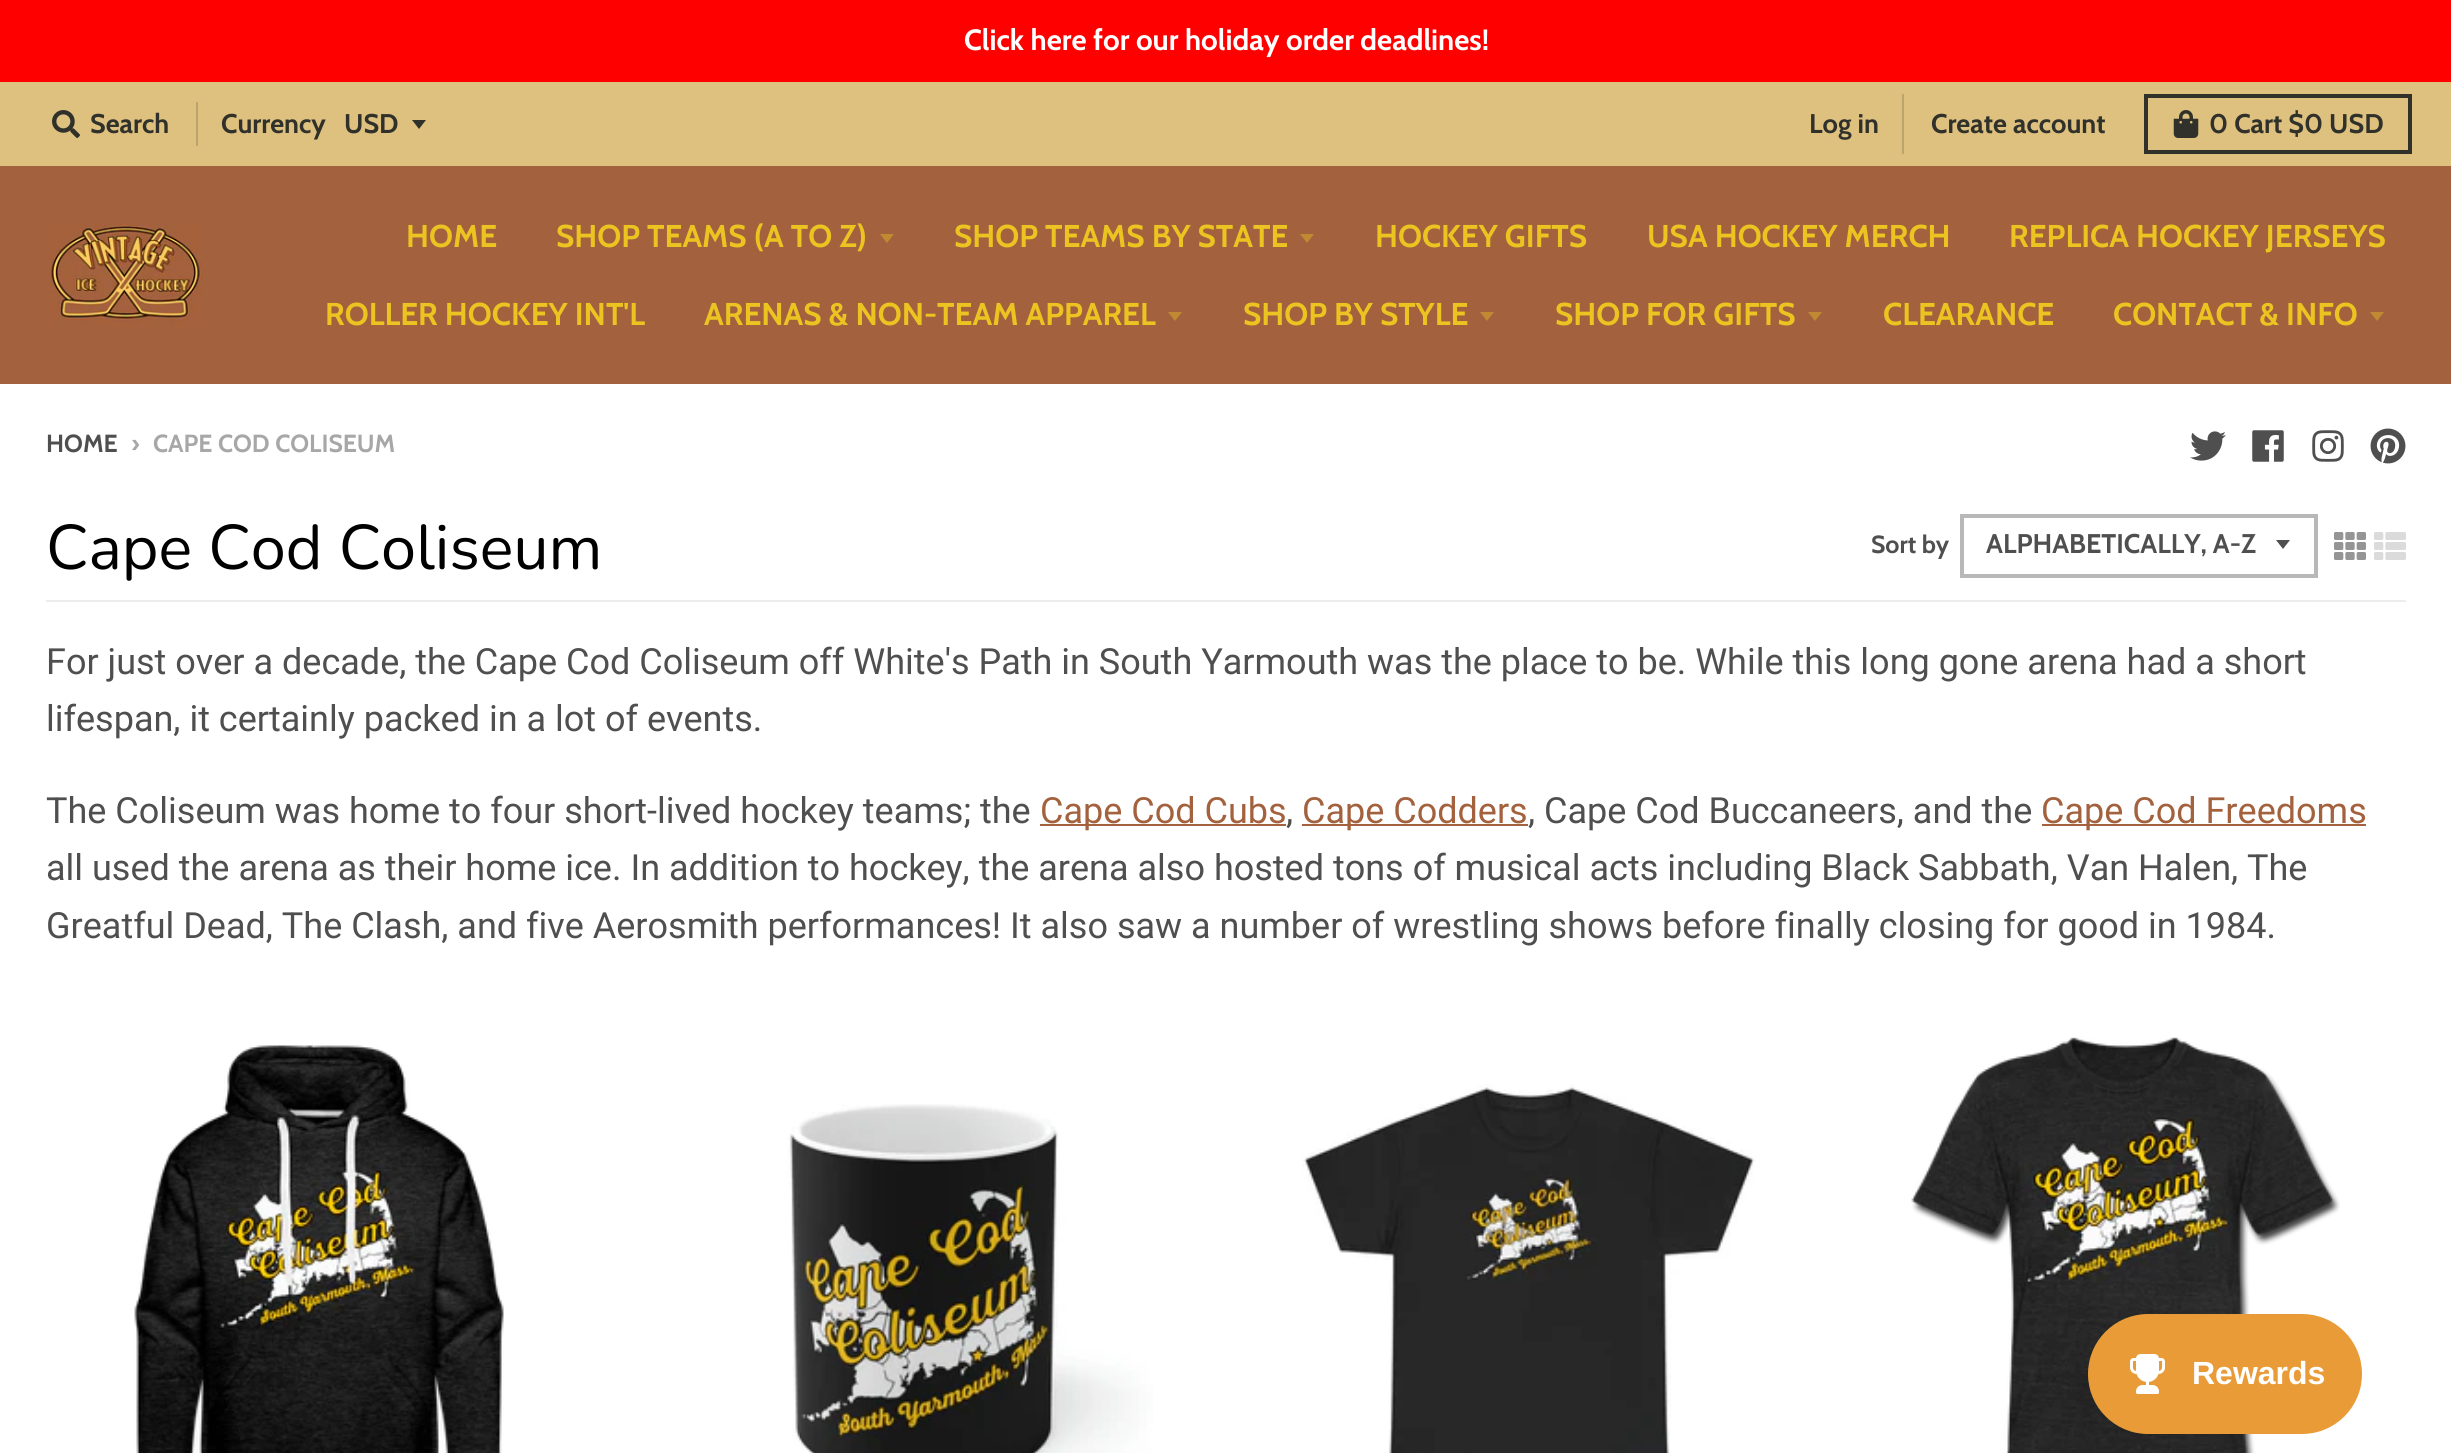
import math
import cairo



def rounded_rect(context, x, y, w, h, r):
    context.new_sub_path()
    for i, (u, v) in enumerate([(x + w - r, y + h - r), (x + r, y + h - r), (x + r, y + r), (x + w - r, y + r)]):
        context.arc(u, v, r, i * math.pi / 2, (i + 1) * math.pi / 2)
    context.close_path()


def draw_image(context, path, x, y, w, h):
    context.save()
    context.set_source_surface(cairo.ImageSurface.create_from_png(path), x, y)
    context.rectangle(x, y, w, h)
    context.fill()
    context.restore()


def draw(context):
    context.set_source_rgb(1, 1, 1)
    context.paint()
    context.set_source_rgb(1, 0, 0)
    context.rectangle(0, 0, 2451, 82)
    context.fill()
    context.set_source_rgb(222 / 255, 193 / 255, 127 / 255)
    context.rectangle(0, 82, 2451, 84)
    context.fill()
    draw_image(context, "images/1.png", 52, 110, 28, 28)
    context.set_source_rgb(187 / 255, 164 / 255, 110 / 255)
    context.rectangle(196, 102, 2, 44)
    context.fill()
    context.set_source_rgb(49 / 255, 49 / 255, 43 / 255)
    context.new_path()
    context.move_to(412, 120)
    context.line_to(419, 129)
    context.line_to(426, 120)
    context.close_path()
    context.fill()
    context.set_source_rgb(187 / 255, 164 / 255, 110 / 255)
    context.rectangle(1902, 94, 2, 60)
    context.fill()
    context.rectangle(2146, 96, 264, 56)
    context.set_source_rgb(49 / 255, 49 / 255, 43 / 255)
    context.set_line_width(4)
    context.stroke()
    draw_image(context, "images/2.png", 2173, 110, 26, 28)
    context.set_source_rgb(163 / 255, 97 / 255, 61 / 255)
    context.rectangle(0, 166, 2451, 218)
    context.fill()
    draw_image(context, "images/3.png", 49, 224, 153, 102)
    context.set_source_rgb(192 / 255, 137 / 255, 50 / 255)
    context.new_path()
    context.move_to(880, 234)
    context.line_to(887, 243)
    context.line_to(894, 234)
    context.close_path()
    context.fill()
    context.new_path()
    context.move_to(1300, 234)
    context.line_to(1307, 243)
    context.line_to(1314, 234)
    context.close_path()
    context.fill()
    context.new_path()
    context.move_to(1168, 312)
    context.line_to(1175, 321)
    context.line_to(1182, 312)
    context.close_path()
    context.fill()
    context.new_path()
    context.move_to(1480, 312)
    context.line_to(1487, 321)
    context.line_to(1494, 312)
    context.close_path()
    context.fill()
    context.new_path()
    context.move_to(1808, 312)
    context.line_to(1815, 321)
    context.line_to(1822, 312)
    context.close_path()
    context.fill()
    context.new_path()
    context.move_to(2370, 312)
    context.line_to(2377, 321)
    context.line_to(2384, 312)
    context.close_path()
    context.fill()
    draw_image(context, "images/4.png", 2190, 431, 36, 30)
    draw_image(context, "images/5.png", 2252, 430, 32, 32)
    draw_image(context, "images/6.png", 2312, 430, 32, 32)
    draw_image(context, "images/7.png", 2370, 428, 36, 36)
    context.set_source_rgb(237 / 255, 237 / 255, 237 / 255)
    context.rectangle(46, 600, 2360, 2)
    context.fill()
    context.set_source_rgb(79 / 255, 79 / 255, 79 / 255)
    context.new_path()
    context.move_to(2276, 540)
    context.line_to(2283, 549)
    context.line_to(2290, 540)
    context.close_path()
    context.fill()
    context.rectangle(1962, 516, 354, 60)
    context.set_source_rgb(184 / 255, 184 / 255, 184 / 255)
    context.stroke()
    draw_image(context, "images/8.png", 2334, 532, 32, 28)
    draw_image(context, "images/9.png", 2374, 532, 32, 28)
    context.set_source_rgb(163 / 255, 97 / 255, 61 / 255)
    context.rectangle(1040, 824, 246, 2)
    context.fill()
    context.rectangle(1302, 824, 226, 2)
    context.fill()
    context.rectangle(2042, 824, 324, 2)
    context.fill()
    draw_image(context, "images/10.png", 134, 1045, 370, 408)
    draw_image(context, "images/11.png", 787, 1104, 366, 349)
    draw_image(context, "images/12.png", 1302, 1084, 453, 369)
    draw_image(context, "images/13.png", 1911, 1037, 429, 416)
    context.set_source_rgb(233 / 255, 155 / 255, 55 / 255)
    rounded_rect(context, 2088, 1314, 274, 120, 60)
    context.fill()
    draw_image(context, "images/14.png", 2130, 1354, 35, 40)
    context.select_font_face("Cabin", cairo.FontSlant.NORMAL, cairo.FontWeight.BOLD)
    context.set_font_size(29.25)
    context.set_source_rgb(1, 1, 1)
    context.move_to(964, 50)
    context.show_text("Click here for our holiday order deadlines!")
    context.set_font_size(27)
    context.set_source_rgb(49 / 255, 49 / 255, 43 / 255)
    context.move_to(90, 133)
    context.show_text("Search")
    context.move_to(221, 133)
    context.show_text("Currency")
    context.move_to(344, 133)
    context.show_text("USD")
    context.move_to(1809, 133)
    context.show_text("Log in")
    context.move_to(1931, 133)
    context.show_text("Create account")
    context.move_to(2209, 133)
    context.show_text("0 Cart $0 USD")
    context.set_font_size(31.5)
    context.set_source_rgb(236 / 255, 196 / 255, 34 / 255)
    context.move_to(406, 247)
    context.show_text("HOME")
    context.move_to(556, 247)
    context.show_text("SHOP TEAMS (A TO Z)")
    context.move_to(954, 247)
    context.show_text("SHOP TEAMS BY STATE")
    context.move_to(1375, 247)
    context.show_text("HOCKEY GIFTS")
    context.move_to(1647, 247)
    context.show_text("USA HOCKEY MERCH")
    context.move_to(2009, 247)
    context.show_text("REPLICA HOCKEY JERSEYS")
    context.move_to(325, 325)
    context.show_text("ROLLER HOCKEY INT'L")
    context.move_to(704, 325)
    context.show_text("ARENAS & NON-TEAM APPAREL")
    context.move_to(1243, 325)
    context.show_text("SHOP BY STYLE")
    context.move_to(1555, 325)
    context.show_text("SHOP FOR GIFTS")
    context.move_to(1883, 325)
    context.show_text("CLEARANCE")
    context.move_to(2113, 325)
    context.show_text("CONTACT & INFO")
    context.set_font_size(24.75)
    context.set_source_rgb(79 / 255, 79 / 255, 79 / 255)
    context.move_to(46, 452)
    context.show_text("HOME")
    context.set_source_rgb(167 / 255, 167 / 255, 167 / 255)
    context.move_to(131, 452)
    context.show_text("›")
    context.move_to(153, 452)
    context.show_text("CAPE COD COLISEUM")
    context.select_font_face("Nunito")
    context.set_font_size(63)
    context.set_source_rgb(0, 0, 0)
    context.move_to(46, 569)
    context.show_text("Cape Cod Coliseum")
    context.select_font_face("Cabin", cairo.FontSlant.NORMAL, cairo.FontWeight.BOLD)
    context.set_font_size(24.75)
    context.set_source_rgb(79 / 255, 79 / 255, 79 / 255)
    context.move_to(1871, 553)
    context.show_text("Sort by")
    context.set_font_size(27)
    context.move_to(1986, 553)
    context.show_text("ALPHABETICALLY, A-Z")
    context.select_font_face("Roboto")
    context.set_font_size(36)
    context.move_to(46, 674)
    context.show_text("For just over a decade, the Cape Cod Coliseum off White's Path in South Yarmouth was the place to be. While this long gone arena had a short")
    context.move_to(46, 731)
    context.show_text("lifespan, it certainly packed in a lot of events.")
    context.move_to(46, 823)
    context.show_text("The Coliseum was home to four short-lived hockey teams; the")
    context.set_source_rgb(163 / 255, 97 / 255, 61 / 255)
    context.move_to(1040, 823)
    context.show_text("Cape Cod Cubs")
    context.set_source_rgb(79 / 255, 79 / 255, 79 / 255)
    context.move_to(1286, 823)
    context.show_text(",")
    context.set_source_rgb(163 / 255, 97 / 255, 61 / 255)
    context.move_to(1302, 823)
    context.show_text("Cape Codders")
    context.set_source_rgb(79 / 255, 79 / 255, 79 / 255)
    context.move_to(1528, 823)
    context.show_text(", Cape Cod Buccaneers, and the")
    context.set_source_rgb(163 / 255, 97 / 255, 61 / 255)
    context.move_to(2041, 823)
    context.show_text("Cape Cod Freedoms")
    context.set_source_rgb(79 / 255, 79 / 255, 79 / 255)
    context.move_to(46, 880)
    context.show_text("all used the arena as their home ice. In addition to hockey, the arena also hosted tons of musical acts including Black Sabbath, Van Halen, The")
    context.move_to(46, 938)
    context.show_text("Greatful Dead, The Clash, and five Aerosmith performances! It also saw a number of wrestling shows before finally closing for good in 1984.")
    context.select_font_face("Liberation Sans", cairo.FontSlant.NORMAL, cairo.FontWeight.BOLD)
    context.set_font_size(32)
    context.set_source_rgb(1, 1, 1)
    context.move_to(2192, 1384)
    context.show_text("Rewards")


surface = cairo.ImageSurface(cairo.Format.RGB24, 2451, 1453)
context = cairo.Context(surface)
options = cairo.FontOptions()
options.set_hint_metrics(cairo.HintMetrics.OFF)
options.set_hint_style(cairo.HintStyle.NONE)
context.set_font_options(options)
context.set_miter_limit(4)
draw(context)
surface.write_to_png("out.png")
